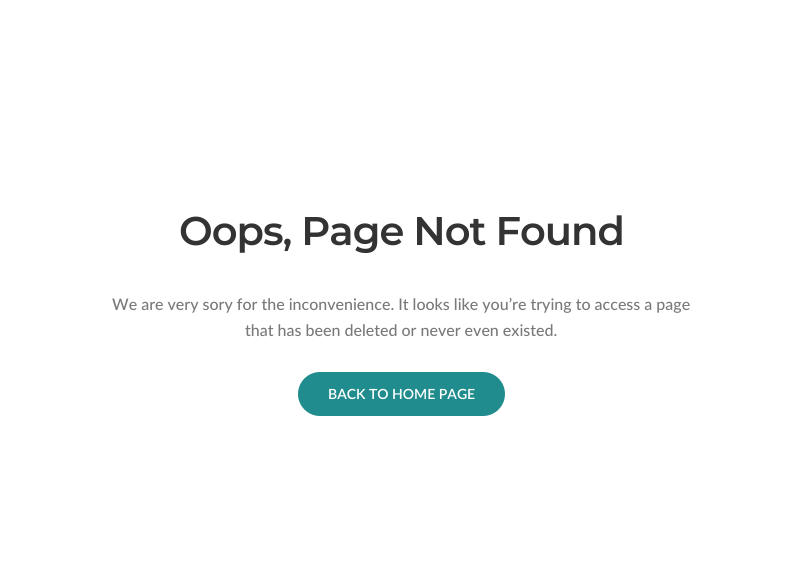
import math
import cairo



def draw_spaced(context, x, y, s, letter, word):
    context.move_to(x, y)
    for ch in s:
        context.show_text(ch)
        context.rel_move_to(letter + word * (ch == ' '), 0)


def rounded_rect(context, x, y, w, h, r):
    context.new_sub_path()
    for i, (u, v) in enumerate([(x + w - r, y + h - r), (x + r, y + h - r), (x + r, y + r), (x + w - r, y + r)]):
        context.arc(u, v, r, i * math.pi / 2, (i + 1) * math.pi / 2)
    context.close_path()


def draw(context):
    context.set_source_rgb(1, 1, 1)
    context.paint()
    context.set_source_rgb(33 / 255, 140 / 255, 141 / 255)
    rounded_rect(context, 298, 372, 207, 44, 22)
    context.fill()
    context.select_font_face("Montserrat SemiBold")
    context.set_font_size(40)
    context.set_source_rgb(51 / 255, 51 / 255, 51 / 255)
    draw_spaced(context, 179, 245, "Oops, Page Not Found", -1, 0)
    context.select_font_face("Lato Medium")
    context.set_font_size(16)
    context.set_source_rgb(121 / 255, 121 / 255, 121 / 255)
    context.move_to(112, 310)
    context.show_text("We are very sory for the inconvenience. It looks like you’re trying to access a page")
    context.move_to(245, 336)
    context.show_text("that has been deleted or never even existed.")
    context.select_font_face("Lato SemiBold")
    context.set_font_size(14)
    context.set_source_rgb(1, 1, 1)
    context.move_to(328, 399)
    context.show_text("BACK TO HOME PAGE")


surface = cairo.ImageSurface(cairo.Format.RGB24, 803, 578)
context = cairo.Context(surface)
options = cairo.FontOptions()
options.set_hint_metrics(cairo.HintMetrics.OFF)
options.set_hint_style(cairo.HintStyle.NONE)
context.set_font_options(options)
context.set_miter_limit(4)
draw(context)
surface.write_to_png("out.png")
